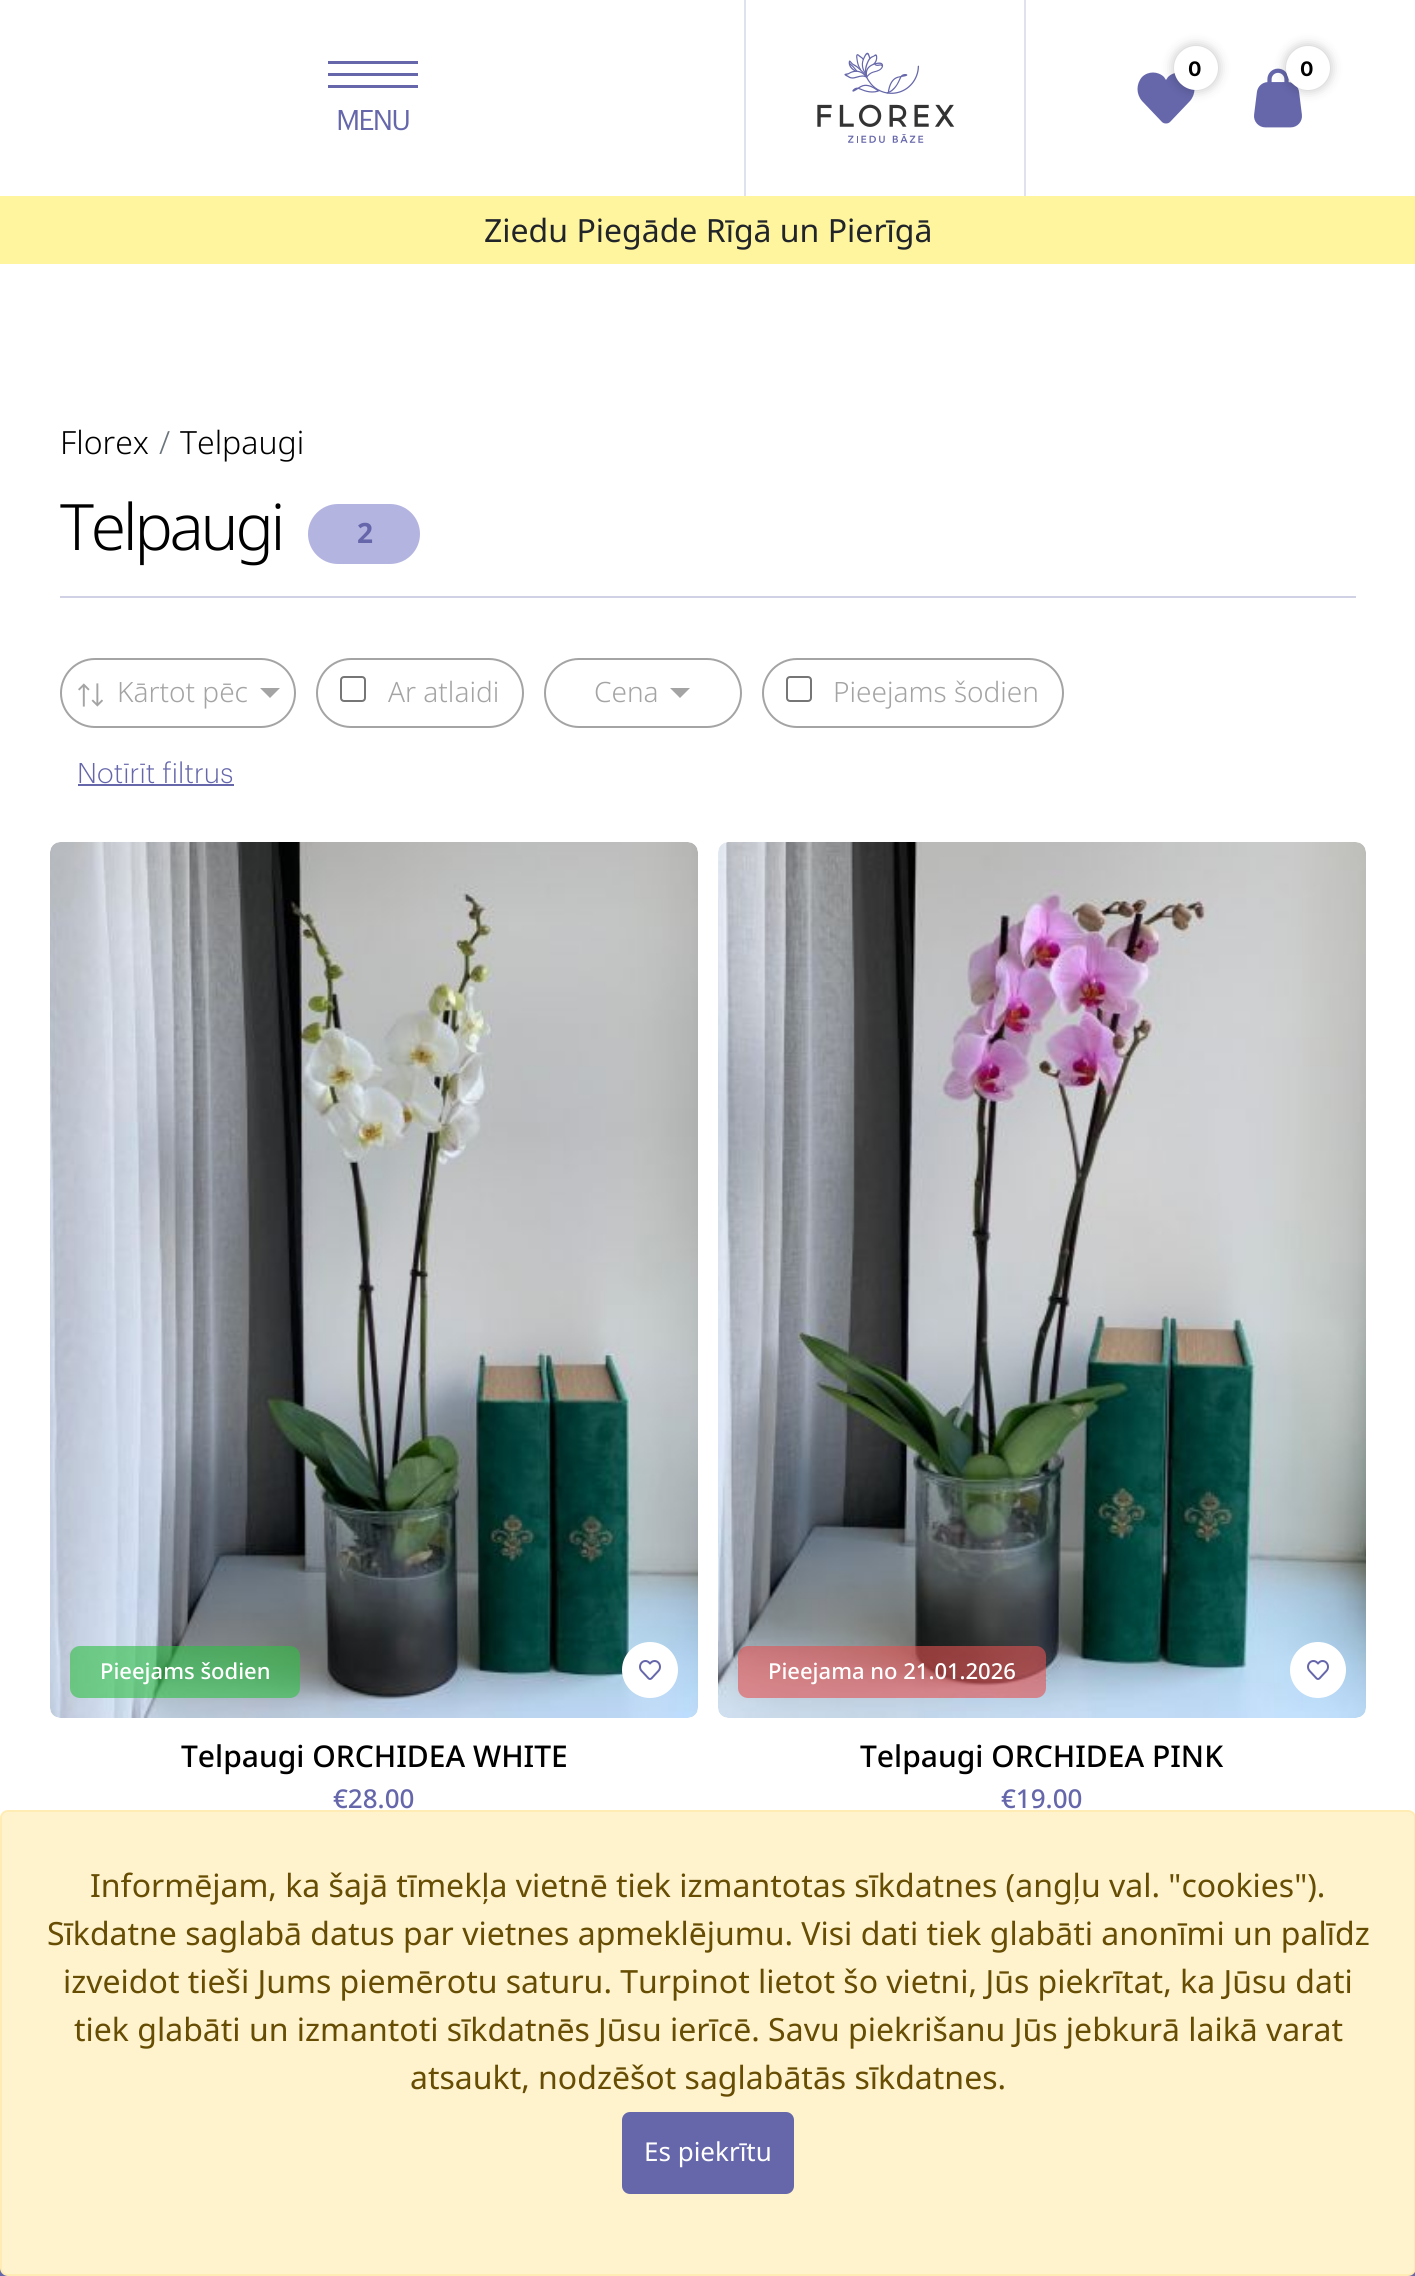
import math
import cairo



def draw_spaced(context, x, y, s, letter, word):
    context.move_to(x, y)
    for ch in s:
        context.show_text(ch)
        context.rel_move_to(letter + word * (ch == ' '), 0)


def rounded_rect(context, x, y, w, h, r):
    context.new_sub_path()
    for i, (u, v) in enumerate([(x + w - r, y + h - r), (x + r, y + h - r), (x + r, y + r), (x + w - r, y + r)]):
        context.arc(u, v, r, i * math.pi / 2, (i + 1) * math.pi / 2)
    context.close_path()


def draw_shadow(context, x, y, w, h, r, blur, alpha):
    context.push_group_with_content(cairo.Content.ALPHA)
    context.set_operator(cairo.Operator.SOURCE)
    for i in range(15, -16, -2):
        e = blur * i / 6
        if min(w, h) + 2 * e > 0:
            context.set_source_rgba(0, 0, 0, alpha * math.erfc((i - 1) / 8.5) / 2)
            rounded_rect(context, x - e, y - e, w + 2 * e, h + 2 * e, max(0, min(r + e + blur * .6, min(w, h) / 2 + e)))
            context.fill()
    context.mask(context.pop_group())


def draw_image(context, path, x, y, w, h):
    context.save()
    context.set_source_surface(cairo.ImageSurface.create_from_png(path), x, y)
    context.rectangle(x, y, w, h)
    context.fill()
    context.restore()


def draw(context):
    context.set_source_rgb(1, 1, 1)
    context.paint()
    draw_image(context, "images/1.png", 328, 61, 90, 70)
    context.set_source_rgb(224 / 255, 225 / 255, 238 / 255)
    context.rectangle(744, 0, 2, 196)
    context.fill()
    draw_image(context, "images/2.png", 817, 52, 138, 91)
    context.rectangle(1024, 0, 2, 196)
    context.fill()
    context.set_source_rgb(102 / 255, 103 / 255, 171 / 255)
    context.new_path()
    context.move_to(1168, 77)
    context.line_to(1166, 80)
    context.line_to(1164, 77)
    context.curve_to(1158, 71, 1148, 71, 1142, 77)
    context.curve_to(1136, 84, 1136, 94, 1142, 101)
    context.line_to(1162, 122)
    context.curve_to(1164, 124, 1168, 124, 1170, 122)
    context.line_to(1190, 101)
    context.curve_to(1196, 94, 1196, 84, 1190, 77)
    context.curve_to(1184, 71, 1174, 71, 1168, 77)
    context.close_path()
    context.fill()
    context.set_source_rgb(0, 0, 0)
    draw_shadow(context, 1174, 46, 44, 44, 22, 6, 0.25)
    context.set_source_rgb(1, 1, 1)
    context.arc(1196, 68, 22, 0, 2 * math.pi)
    context.fill()
    draw_image(context, "images/3.png", 1254, 68, 48, 60)
    context.set_source_rgb(0, 0, 0)
    draw_shadow(context, 1286, 46, 44, 44, 22, 6, 0.25)
    context.set_source_rgb(1, 1, 1)
    context.arc(1308, 68, 22, 0, 2 * math.pi)
    context.fill()
    context.set_source_rgb(1, 245 / 255, 158 / 255)
    context.rectangle(0, 196, 1415, 68)
    context.fill()
    context.set_source_rgb(209 / 255, 209 / 255, 230 / 255)
    context.rectangle(60, 596, 1296, 2)
    context.fill()
    context.set_source_rgb(180 / 255, 180 / 255, 225 / 255)
    rounded_rect(context, 308, 504, 112, 60, 30)
    context.fill()
    rounded_rect(context, 61, 659, 234, 68, 34)
    context.set_source_rgb(164 / 255, 164 / 255, 164 / 255)
    context.stroke()
    draw_image(context, "images/4.png", 78, 683, 25, 24)
    context.new_path()
    context.move_to(260, 688)
    context.line_to(280, 688)
    context.line_to(270, 698)
    context.close_path()
    context.fill()
    rounded_rect(context, 317, 659, 206, 68, 34)
    context.stroke()
    rounded_rect(context, 341, 677, 24, 24, 3)
    context.set_source_rgb(118 / 255, 118 / 255, 118 / 255)
    context.stroke()
    rounded_rect(context, 545, 659, 196, 68, 34)
    context.set_source_rgb(164 / 255, 164 / 255, 164 / 255)
    context.stroke()
    context.new_path()
    context.move_to(670, 688)
    context.line_to(690, 688)
    context.line_to(680, 698)
    context.close_path()
    context.fill()
    rounded_rect(context, 763, 659, 300, 68, 34)
    context.stroke()
    rounded_rect(context, 787, 677, 24, 24, 3)
    context.set_source_rgb(118 / 255, 118 / 255, 118 / 255)
    context.stroke()
    context.set_source_rgb(102 / 255, 103 / 255, 171 / 255)
    context.rectangle(78, 784, 156, 2)
    context.fill()
    draw_image(context, "images/5.png", 50, 842, 648, 876)
    context.set_source_rgba(48 / 255, 192 / 255, 69 / 255, 0.6)
    rounded_rect(context, 70, 1646, 230, 52, 10)
    context.fill()
    context.set_source_rgb(1, 1, 1)
    context.arc(650, 1670, 27, 0, 2 * math.pi)
    context.fill_preserve()
    context.stroke()
    draw_image(context, "images/6.png", 639, 1660, 22, 20)
    draw_image(context, "images/7.png", 718, 842, 648, 876)
    context.set_source_rgba(226 / 255, 83 / 255, 83 / 255, 0.6)
    rounded_rect(context, 738, 1646, 308, 52, 10)
    context.fill()
    context.set_source_rgb(1, 1, 1)
    context.arc(1318, 1670, 27, 0, 2 * math.pi)
    context.fill_preserve()
    context.stroke()
    draw_image(context, "images/6.png", 1307, 1660, 22, 20)
    context.set_source_rgb(102 / 255, 103 / 255, 171 / 255)
    context.rectangle(0, 2268, 1415, 8)
    context.fill()
    context.set_source_rgb(1, 243 / 255, 205 / 255)
    rounded_rect(context, 1, 1811, 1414, 464, 7)
    context.fill_preserve()
    context.set_source_rgb(1, 236 / 255, 181 / 255)
    context.stroke()
    context.set_source_rgb(102 / 255, 103 / 255, 171 / 255)
    rounded_rect(context, 622, 2112, 172, 82, 8)
    context.fill()
    context.select_font_face("Inter", cairo.FontSlant.NORMAL, cairo.FontWeight.BOLD)
    context.set_font_size(20)
    context.set_source_rgb(0, 0, 0)
    context.move_to(1188, 76)
    context.show_text("0")
    context.move_to(1300, 76)
    context.show_text("0")
    context.select_font_face("Noto Sans")
    context.set_font_size(32)
    context.set_source_rgb(33 / 255, 37 / 255, 41 / 255)
    context.move_to(484, 242)
    context.show_text("Ziedu Piegāde Rīgā un Pierīgā")
    context.select_font_face("Noto Sans Light")
    context.set_source_rgb(0, 0, 0)
    context.move_to(60, 454)
    context.show_text("Florex")
    context.set_source_rgb(108 / 255, 117 / 255, 125 / 255)
    context.move_to(159, 454)
    context.show_text("/")
    context.set_source_rgb(0, 0, 0)
    context.move_to(180, 454)
    context.show_text("Telpaugi")
    context.set_font_size(64)
    draw_spaced(context, 60, 550, "Telpaugi", -3.25, 0)
    context.select_font_face("Noto Sans", cairo.FontSlant.NORMAL, cairo.FontWeight.BOLD)
    context.set_font_size(28)
    context.set_source_rgb(102 / 255, 103 / 255, 171 / 255)
    context.move_to(357, 543)
    context.show_text("2")
    context.select_font_face("Noto Sans Light")
    context.set_source_rgb(164 / 255, 164 / 255, 164 / 255)
    context.move_to(117, 702)
    context.show_text("Kārtot pēc")
    context.move_to(388, 702)
    context.show_text("Ar atlaidi")
    context.move_to(594, 702)
    context.show_text("Cena")
    context.move_to(833, 702)
    context.show_text("Pieejams šodien")
    context.select_font_face("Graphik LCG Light")
    context.set_source_rgb(102 / 255, 103 / 255, 171 / 255)
    context.move_to(77, 783)
    context.show_text("Notīrīt filtrus")
    context.select_font_face("Noto Sans Medium")
    context.set_font_size(22)
    context.set_source_rgb(1, 1, 1)
    context.move_to(100, 1679)
    context.show_text("Pieejams šodien")
    context.set_font_size(30)
    context.set_source_rgb(0, 0, 0)
    context.move_to(181, 1767)
    context.show_text("Telpaugi ORCHIDEA WHITE")
    context.set_font_size(26)
    context.set_source_rgb(102 / 255, 103 / 255, 171 / 255)
    context.move_to(333, 1808)
    context.show_text("€28.00")
    context.set_font_size(22)
    context.set_source_rgb(1, 1, 1)
    context.move_to(768, 1679)
    context.show_text("Pieejama no 21.01.2026")
    context.set_font_size(30)
    context.set_source_rgb(0, 0, 0)
    context.move_to(860, 1767)
    context.show_text("Telpaugi ORCHIDEA PINK")
    context.set_font_size(26)
    context.set_source_rgb(102 / 255, 103 / 255, 171 / 255)
    context.move_to(1001, 1808)
    context.show_text("€19.00")
    context.select_font_face("Noto Sans")
    context.set_font_size(32)
    context.set_source_rgb(102 / 255, 77 / 255, 3 / 255)
    context.move_to(90, 1897)
    context.show_text("Informējam, ka šajā tīmekļa vietnē tiek izmantotas sīkdatnes (angļu val. \"cookies\").")
    context.move_to(47, 1945)
    context.show_text("Sīkdatne saglabā datus par vietnes apmeklējumu. Visi dati tiek glabāti anonīmi un palīdz")
    context.move_to(63, 1993)
    context.show_text("izveidot tieši Jums piemērotu saturu. Turpinot lietot šo vietni, Jūs piekrītat, ka Jūsu dati")
    context.move_to(74, 2041)
    context.show_text("tiek glabāti un izmantoti sīkdatnēs Jūsu ierīcē. Savu piekrišanu Jūs jebkurā laikā varat")
    context.move_to(410, 2089)
    context.show_text("atsaukt, nodzēšot saglabātās sīkdatnes.")
    context.set_font_size(26)
    context.set_source_rgb(1, 1, 1)
    context.move_to(644, 2161)
    context.show_text("Es piekrītu")


surface = cairo.ImageSurface(cairo.Format.RGB24, 1415, 2276)
context = cairo.Context(surface)
options = cairo.FontOptions()
options.set_hint_metrics(cairo.HintMetrics.OFF)
options.set_hint_style(cairo.HintStyle.NONE)
context.set_font_options(options)
context.set_miter_limit(4)
draw(context)
surface.write_to_png("out.png")
